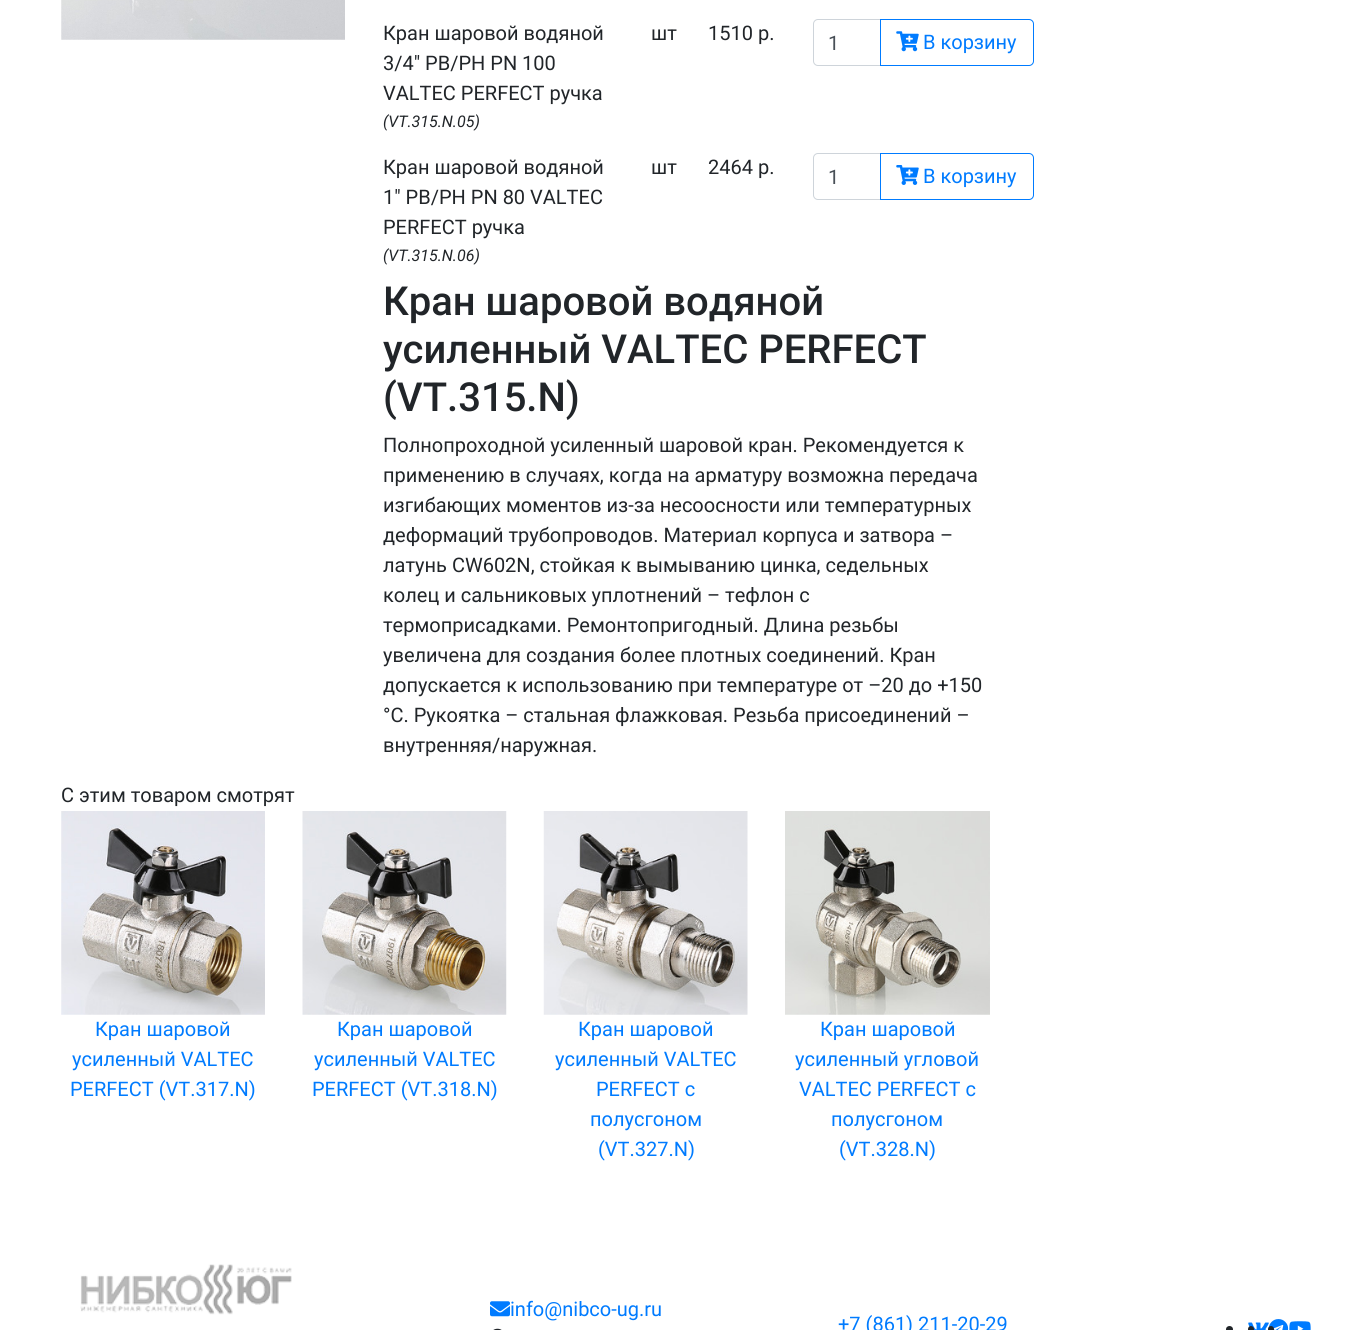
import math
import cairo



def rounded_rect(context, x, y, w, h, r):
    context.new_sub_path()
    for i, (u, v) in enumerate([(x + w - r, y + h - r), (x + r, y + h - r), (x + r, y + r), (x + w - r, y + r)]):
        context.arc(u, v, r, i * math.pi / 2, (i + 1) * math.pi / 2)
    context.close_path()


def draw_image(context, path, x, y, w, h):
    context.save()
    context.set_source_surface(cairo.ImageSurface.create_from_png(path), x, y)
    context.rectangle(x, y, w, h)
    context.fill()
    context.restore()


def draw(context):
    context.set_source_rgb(1, 1, 1)
    context.paint()
    draw_image(context, "images/1.png", 61, 0, 284, 40)
    context.new_path()
    context.move_to(818, 19.5)
    context.line_to(880.5, 19.5)
    context.line_to(880.5, 65.5)
    context.line_to(818, 65.5)
    context.curve_to(815.5, 65.5, 813.5, 63.5, 813.5, 61)
    context.line_to(813.5, 24)
    context.curve_to(813.5, 21.5, 815.5, 19.5, 818, 19.5)
    context.close_path()
    context.set_source_rgb(206 / 255, 212 / 255, 218 / 255)
    context.set_line_width(1)
    context.stroke()
    context.new_path()
    context.move_to(880.5, 19.5)
    context.line_to(1029, 19.5)
    context.curve_to(1031.5, 19.5, 1033.5, 21.5, 1033.5, 24)
    context.line_to(1033.5, 61)
    context.curve_to(1033.5, 63.5, 1031.5, 65.5, 1029, 65.5)
    context.line_to(880.5, 65.5)
    context.close_path()
    context.set_source_rgb(0, 123 / 255, 1)
    context.stroke()
    draw_image(context, "images/2.png", 896, 31, 23, 21)
    context.new_path()
    context.move_to(818, 153.5)
    context.line_to(880.5, 153.5)
    context.line_to(880.5, 199.5)
    context.line_to(818, 199.5)
    context.curve_to(815.5, 199.5, 813.5, 197.5, 813.5, 195)
    context.line_to(813.5, 158)
    context.curve_to(813.5, 155.5, 815.5, 153.5, 818, 153.5)
    context.close_path()
    context.set_source_rgb(206 / 255, 212 / 255, 218 / 255)
    context.stroke()
    context.new_path()
    context.move_to(880.5, 153.5)
    context.line_to(1029, 153.5)
    context.curve_to(1031.5, 153.5, 1033.5, 155.5, 1033.5, 158)
    context.line_to(1033.5, 195)
    context.curve_to(1033.5, 197.5, 1031.5, 199.5, 1029, 199.5)
    context.line_to(880.5, 199.5)
    context.close_path()
    context.set_source_rgb(0, 123 / 255, 1)
    context.stroke()
    draw_image(context, "images/3.png", 896, 165, 23, 20)
    draw_image(context, "images/4.png", 61, 811, 204, 204)
    draw_image(context, "images/5.png", 302, 811, 205, 204)
    draw_image(context, "images/6.png", 543, 811, 205, 204)
    draw_image(context, "images/7.png", 785, 811, 205, 204)
    draw_image(context, "images/8.png", 80, 1264, 212, 51)
    draw_image(context, "images/9.png", 490, 1301, 20, 16)
    draw_image(context, "images/10.png", 493, 1328, 9, 2)
    draw_image(context, "images/12.png", 1248, 1322, 21, 8)
    context.set_source_rgb(33 / 255, 37 / 255, 41 / 255)
    rounded_rect(context, 1248, 1326, 6, 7, 3)
    context.fill()
    draw_image(context, "images/11.png", 1268, 1319, 21, 11)
    context.arc(1229.5, 1329.5, 3.5, 0, 2 * math.pi)
    context.fill()
    rounded_rect(context, 1268, 1326, 6, 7, 3)
    context.fill()
    draw_image(context, "images/13.png", 1289, 1321, 22, 9)
    context.select_font_face("Roboto")
    context.set_font_size(20)
    context.move_to(383, 40)
    context.show_text("Кран шаровой водяной")
    context.move_to(383, 70)
    context.show_text("3/4\" РВ/РН PN 100")
    context.move_to(383, 100)
    context.show_text("VALTEC PERFECT ручка")
    context.select_font_face("Roboto", cairo.FontSlant.ITALIC)
    context.set_font_size(16)
    context.move_to(383, 127)
    context.show_text("(VT.315.N.05)")
    context.select_font_face("Roboto")
    context.set_font_size(20)
    context.move_to(651, 40)
    context.show_text("шт")
    context.move_to(708, 40)
    context.show_text("1510 р.")
    context.set_source_rgb(73 / 255, 80 / 255, 87 / 255)
    context.move_to(828, 50)
    context.show_text("1")
    context.set_source_rgb(0, 123 / 255, 1)
    context.move_to(923, 49)
    context.show_text("В корзину")
    context.set_source_rgb(33 / 255, 37 / 255, 41 / 255)
    context.move_to(383, 174)
    context.show_text("Кран шаровой водяной")
    context.move_to(383, 204)
    context.show_text("1\" РВ/РН PN 80 VALTEC")
    context.move_to(383, 234)
    context.show_text("PERFECT ручка")
    context.select_font_face("Roboto", cairo.FontSlant.ITALIC)
    context.set_font_size(16)
    context.move_to(383, 261)
    context.show_text("(VT.315.N.06)")
    context.select_font_face("Roboto")
    context.set_font_size(20)
    context.move_to(651, 174)
    context.show_text("шт")
    context.move_to(708, 174)
    context.show_text("2464 р.")
    context.set_source_rgb(73 / 255, 80 / 255, 87 / 255)
    context.move_to(828, 184)
    context.show_text("1")
    context.set_source_rgb(0, 123 / 255, 1)
    context.move_to(923, 183)
    context.show_text("В корзину")
    context.select_font_face("Roboto Medium")
    context.set_font_size(40)
    context.set_source_rgb(33 / 255, 37 / 255, 41 / 255)
    context.move_to(383, 315)
    context.show_text("Кран шаровой водяной")
    context.move_to(383, 363)
    context.show_text("усиленный VALTEC PERFECT")
    context.move_to(383, 411)
    context.show_text("(VT.315.N)")
    context.select_font_face("Roboto")
    context.set_font_size(20)
    context.move_to(383, 452)
    context.show_text("Полнопроходной усиленный шаровой кран. Рекомендуется к")
    context.move_to(383, 482)
    context.show_text("применению в случаях, когда на арматуру возможна передача")
    context.move_to(383, 512)
    context.show_text("изгибающих моментов из-за несоосности или температурных")
    context.move_to(383, 542)
    context.show_text("деформаций трубопроводов. Материал корпуса и затвора –")
    context.move_to(383, 572)
    context.show_text("латунь CW602N, стойкая к вымыванию цинка, седельных")
    context.move_to(383, 602)
    context.show_text("колец и сальниковых уплотнений – тефлон с")
    context.move_to(383, 632)
    context.show_text("термоприсадками. Ремонтопригодный. Длина резьбы")
    context.move_to(383, 662)
    context.show_text("увеличена для создания более плотных соединений. Кран")
    context.move_to(383, 692)
    context.show_text("допускается к использованию при температуре от –20 до +150")
    context.move_to(383, 722)
    context.show_text("°С. Рукоятка – стальная флажковая. Резьба присоединений –")
    context.move_to(383, 752)
    context.show_text("внутренняя/наружная.")
    context.move_to(61, 802)
    context.show_text("C этим товаром смотрят")
    context.set_source_rgb(0, 123 / 255, 1)
    context.move_to(95, 1036)
    context.show_text("Кран шаровой")
    context.move_to(72, 1066)
    context.show_text("усиленный VALTEC")
    context.move_to(70, 1096)
    context.show_text("PERFECT (VT.317.N)")
    context.move_to(337, 1036)
    context.show_text("Кран шаровой")
    context.move_to(314, 1066)
    context.show_text("усиленный VALTEC")
    context.move_to(312, 1096)
    context.show_text("PERFECT (VT.318.N)")
    context.move_to(578, 1036)
    context.show_text("Кран шаровой")
    context.move_to(555, 1066)
    context.show_text("усиленный VALTEC")
    context.move_to(596, 1096)
    context.show_text("PERFECT с")
    context.move_to(590, 1126)
    context.show_text("полусгоном")
    context.move_to(598, 1156)
    context.show_text("(VT.327.N)")
    context.move_to(820, 1036)
    context.show_text("Кран шаровой")
    context.move_to(795, 1066)
    context.show_text("усиленный угловой")
    context.move_to(799, 1096)
    context.show_text("VALTEC PERFECT с")
    context.move_to(831, 1126)
    context.show_text("полусгоном")
    context.move_to(839, 1156)
    context.show_text("(VT.328.N)")
    context.move_to(510, 1316)
    context.show_text("info@nibco-ug.ru")
    context.move_to(838, 1331)
    context.show_text("+7 (861) 211-20-29")


surface = cairo.ImageSurface(cairo.Format.RGB24, 1372, 1330)
context = cairo.Context(surface)
options = cairo.FontOptions()
options.set_hint_metrics(cairo.HintMetrics.OFF)
options.set_hint_style(cairo.HintStyle.NONE)
context.set_font_options(options)
context.set_miter_limit(4)
draw(context)
surface.write_to_png("out.png")
